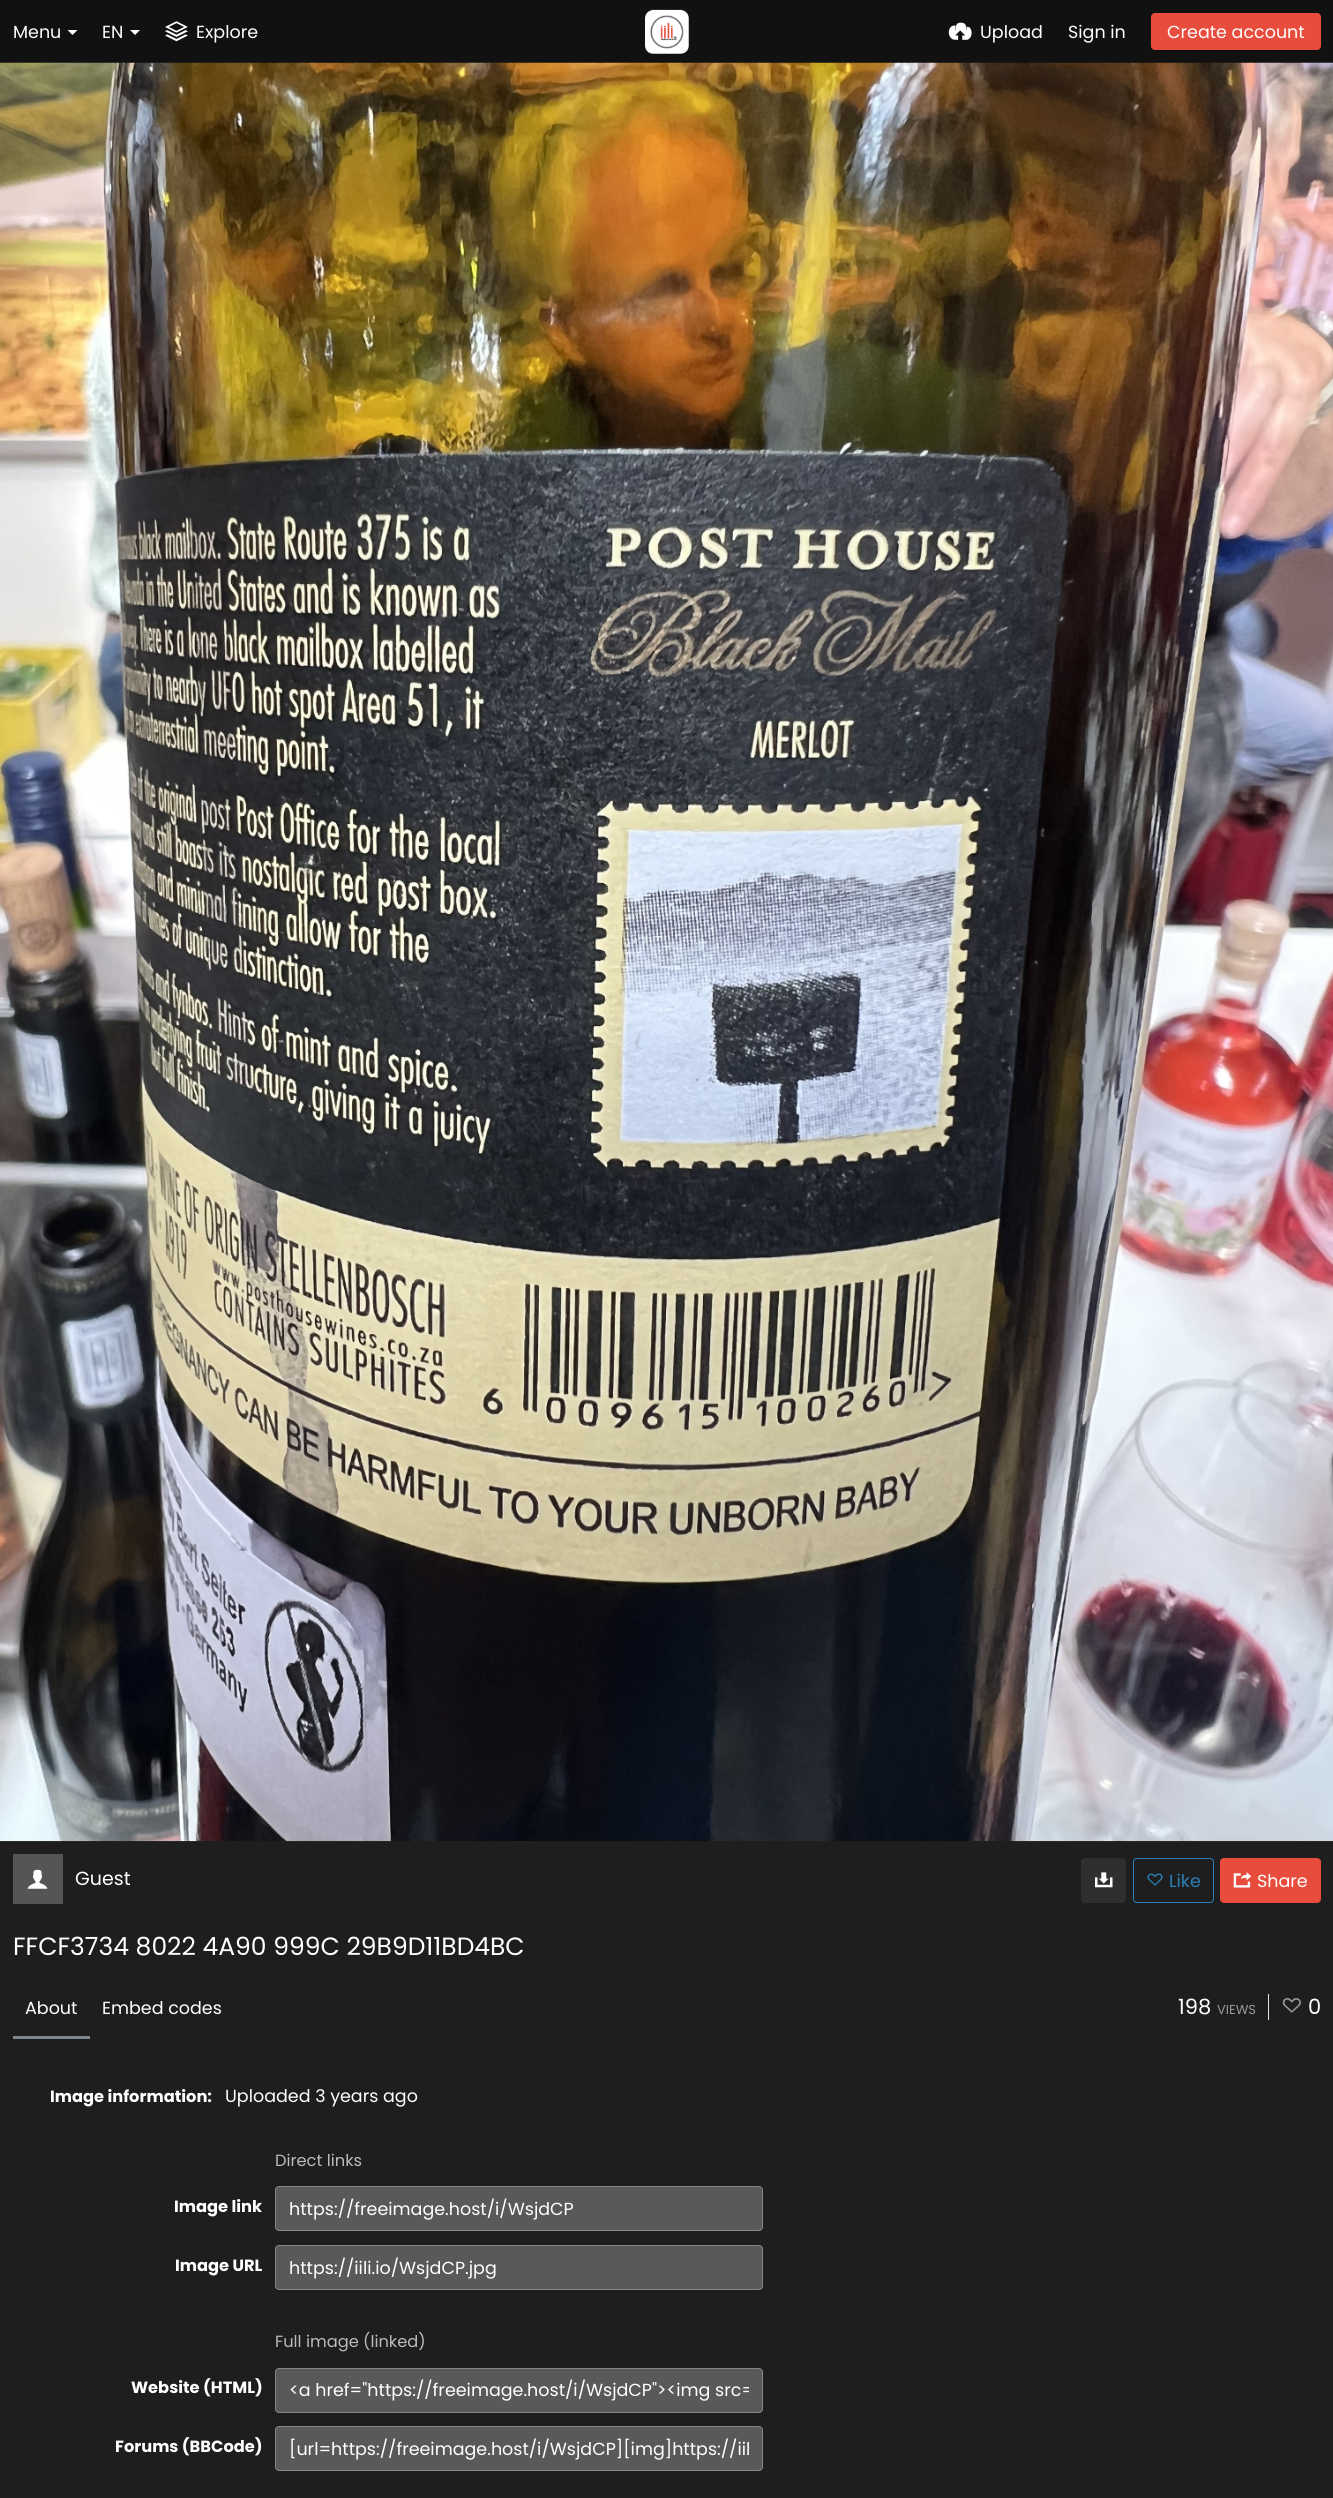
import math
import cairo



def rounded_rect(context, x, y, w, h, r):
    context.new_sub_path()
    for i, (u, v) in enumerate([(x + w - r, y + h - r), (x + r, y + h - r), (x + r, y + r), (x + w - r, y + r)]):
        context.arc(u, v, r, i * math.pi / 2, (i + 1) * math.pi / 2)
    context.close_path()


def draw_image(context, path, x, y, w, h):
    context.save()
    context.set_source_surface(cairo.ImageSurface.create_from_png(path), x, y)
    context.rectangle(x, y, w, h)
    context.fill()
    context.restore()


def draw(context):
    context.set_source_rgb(30 / 255, 30 / 255, 30 / 255)
    context.paint()
    context.set_source_rgb(17 / 255, 17 / 255, 17 / 255)
    context.rectangle(0, 0, 1333, 63)
    context.fill()
    context.set_source_rgb(1, 1, 1)
    context.new_path()
    context.move_to(67.5, 30)
    context.line_to(77.5, 30)
    context.line_to(72.5, 35)
    context.close_path()
    context.fill()
    context.new_path()
    context.move_to(130, 30)
    context.line_to(140, 30)
    context.line_to(135, 35)
    context.close_path()
    context.fill()
    draw_image(context, "images/1.png", 165, 21, 23, 21)
    draw_image(context, "images/2.png", 645, 9, 44, 45)
    draw_image(context, "images/3.png", 948, 22, 24, 18)
    context.set_source_rgb(232 / 255, 76 / 255, 61 / 255)
    rounded_rect(context, 1151, 13, 170, 37, 4)
    context.fill()
    draw_image(context, "images/4.png", 0, 62, 1333, 1780)
    context.set_source_rgb(85 / 255, 85 / 255, 85 / 255)
    context.rectangle(13, 1854, 50, 50)
    context.fill()
    draw_image(context, "images/5.png", 27, 1869, 21, 20)
    context.set_source_rgb(47 / 255, 47 / 255, 47 / 255)
    rounded_rect(context, 1081, 1858, 45, 45, 4)
    context.fill()
    draw_image(context, "images/6.png", 1095, 1872, 18, 16)
    rounded_rect(context, 1133.5, 1858.5, 80, 44, 3.5)
    context.set_source_rgb(42 / 255, 128 / 255, 185 / 255)
    context.set_line_width(1)
    context.stroke()
    draw_image(context, "images/7.png", 1147, 1873, 16, 13)
    context.set_source_rgb(232 / 255, 76 / 255, 61 / 255)
    rounded_rect(context, 1220, 1858, 101, 45, 4)
    context.fill()
    draw_image(context, "images/8.png", 1233, 1872, 19, 16)
    context.set_source_rgb(33 / 255, 33 / 255, 33 / 255)
    context.rectangle(90, 2038, 1231, 1)
    context.fill()
    context.set_source_rgb(122 / 255, 136 / 255, 140 / 255)
    context.rectangle(13, 2036, 77, 3)
    context.fill()
    context.set_source_rgb(229 / 255, 229 / 255, 229 / 255)
    context.rectangle(1268, 1994, 1, 26)
    context.fill()
    draw_image(context, "images/9.png", 1282, 1998, 19, 15)
    context.set_source_rgb(33 / 255, 33 / 255, 33 / 255)
    context.rectangle(25, 2173, 788, 1)
    context.fill()
    context.set_source_rgb(89 / 255, 89 / 255, 89 / 255)
    rounded_rect(context, 275.5, 2186.5, 487, 44, 3.5)
    context.fill_preserve()
    context.set_source_rgb(134 / 255, 134 / 255, 134 / 255)
    context.stroke()
    context.set_source_rgb(89 / 255, 89 / 255, 89 / 255)
    rounded_rect(context, 275.5, 2245.5, 487, 44, 3.5)
    context.fill_preserve()
    context.set_source_rgb(134 / 255, 134 / 255, 134 / 255)
    context.stroke()
    context.set_source_rgb(33 / 255, 33 / 255, 33 / 255)
    context.rectangle(25, 2354, 788, 1)
    context.fill()
    context.set_source_rgb(89 / 255, 89 / 255, 89 / 255)
    rounded_rect(context, 275.5, 2368.5, 487, 44, 3.5)
    context.fill_preserve()
    context.set_source_rgb(134 / 255, 134 / 255, 134 / 255)
    context.stroke()
    context.set_source_rgb(89 / 255, 89 / 255, 89 / 255)
    rounded_rect(context, 275.5, 2426.5, 487, 44, 3.5)
    context.fill_preserve()
    context.set_source_rgb(134 / 255, 134 / 255, 134 / 255)
    context.stroke()
    context.select_font_face("Poppins")
    context.set_font_size(17.5)
    context.set_source_rgb(1, 1, 1)
    context.move_to(13, 38)
    context.show_text("Menu")
    context.move_to(102, 38)
    context.show_text("EN")
    context.move_to(196, 38)
    context.show_text("Explore")
    context.move_to(980, 38)
    context.show_text("Upload")
    context.move_to(1068, 38)
    context.show_text("Sign in")
    context.move_to(1167, 38)
    context.show_text("Create account")
    context.set_font_size(19)
    context.move_to(75, 1885)
    context.show_text("Guest")
    context.set_font_size(17.5)
    context.set_source_rgb(42 / 255, 128 / 255, 185 / 255)
    context.move_to(1169, 1887)
    context.show_text("Like")
    context.set_source_rgb(1, 1, 1)
    context.move_to(1257, 1887)
    context.show_text("Share")
    context.set_font_size(25)
    context.move_to(13, 1955)
    context.show_text("FFCF3734 8022 4A90 999C 29B9D11BD4BC")
    context.set_font_size(17.5)
    context.move_to(25, 2014)
    context.show_text("About")
    context.move_to(102, 2014)
    context.show_text("Embed codes")
    context.set_font_size(21)
    context.move_to(1178, 2014)
    context.show_text("198")
    context.set_font_size(13)
    context.set_source_rgb(153 / 255, 153 / 255, 153 / 255)
    context.move_to(1217, 2014)
    context.show_text("VIEWS")
    context.set_font_size(21)
    context.set_source_rgb(1, 1, 1)
    context.move_to(1308, 2014)
    context.show_text("0")
    context.select_font_face("Poppins", cairo.FontSlant.NORMAL, cairo.FontWeight.BOLD)
    context.set_font_size(16.25)
    context.move_to(50, 2102)
    context.show_text("Image information:")
    context.select_font_face("Poppins")
    context.set_font_size(17.5)
    context.move_to(225, 2102)
    context.show_text("Uploaded 3 years ago")
    context.set_font_size(16.25)
    context.set_source_rgb(187 / 255, 187 / 255, 187 / 255)
    context.move_to(275, 2166)
    context.show_text("Direct links")
    context.select_font_face("Poppins", cairo.FontSlant.NORMAL, cairo.FontWeight.BOLD)
    context.set_source_rgb(1, 1, 1)
    context.move_to(174, 2212)
    context.show_text("Image link")
    context.select_font_face("Poppins")
    context.set_font_size(17.5)
    context.move_to(289, 2215)
    context.show_text("https://freeimage.host/i/WsjdCP")
    context.select_font_face("Poppins", cairo.FontSlant.NORMAL, cairo.FontWeight.BOLD)
    context.set_font_size(16.25)
    context.move_to(175, 2271)
    context.show_text("Image URL")
    context.select_font_face("Poppins")
    context.set_font_size(17.5)
    context.move_to(289, 2274)
    context.show_text("https://iili.io/WsjdCP.jpg")
    context.set_font_size(16.25)
    context.set_source_rgb(187 / 255, 187 / 255, 187 / 255)
    context.move_to(275, 2347)
    context.show_text("Full image (linked)")
    context.select_font_face("Poppins", cairo.FontSlant.NORMAL, cairo.FontWeight.BOLD)
    context.set_source_rgb(1, 1, 1)
    context.move_to(131, 2393)
    context.show_text("Website (HTML)")
    context.save()
    context.rectangle(289, 2378, 460, 26)
    context.clip()
    context.select_font_face("Poppins")
    context.set_font_size(17.5)
    context.move_to(289, 2396)
    context.show_text("<a href=\"https://freeimage.host/i/WsjdCP\"><img src=")
    context.restore()
    context.move_to(115, 2452)
    context.show_text("Forums (BBCode)")
    context.select_font_face("Poppins")
    context.set_font_size(17.5)
    context.move_to(289, 2455)
    context.show_text("[url=https://freeimage.host/i/WsjdCP][img]https://iil")


surface = cairo.ImageSurface(cairo.Format.RGB24, 1333, 2498)
context = cairo.Context(surface)
options = cairo.FontOptions()
options.set_hint_metrics(cairo.HintMetrics.OFF)
options.set_hint_style(cairo.HintStyle.NONE)
context.set_font_options(options)
context.set_miter_limit(4)
draw(context)
surface.write_to_png("out.png")
